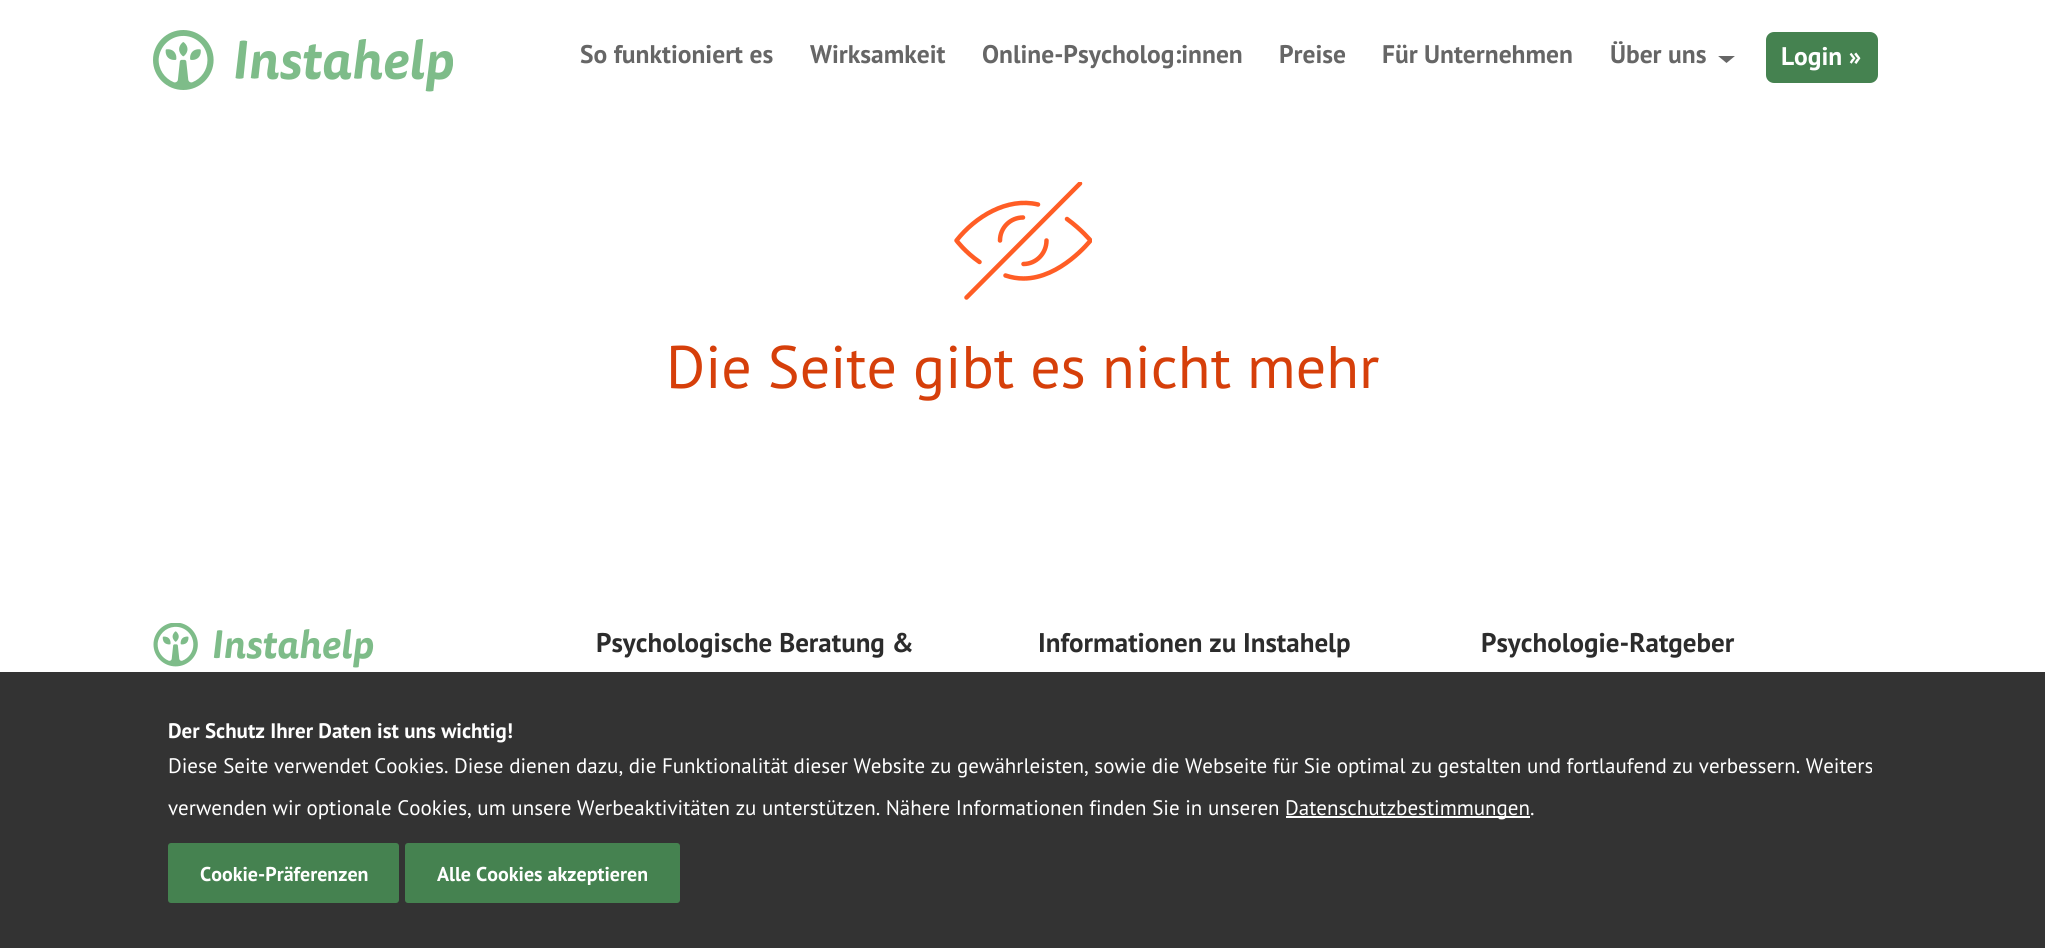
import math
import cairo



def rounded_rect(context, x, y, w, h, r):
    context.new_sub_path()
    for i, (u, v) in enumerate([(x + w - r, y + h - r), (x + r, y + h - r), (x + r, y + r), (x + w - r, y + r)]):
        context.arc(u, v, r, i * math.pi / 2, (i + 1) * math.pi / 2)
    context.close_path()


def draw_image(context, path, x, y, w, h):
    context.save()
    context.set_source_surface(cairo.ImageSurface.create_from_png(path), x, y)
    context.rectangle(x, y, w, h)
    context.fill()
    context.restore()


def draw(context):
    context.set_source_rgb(1, 1, 1)
    context.paint()
    draw_image(context, "images/1.png", 153, 30, 300, 62)
    draw_image(context, "images/2.png", 1718, 56, 17, 7)
    context.set_source_rgb(69 / 255, 130 / 255, 80 / 255)
    rounded_rect(context, 1767, 33, 110, 49, 7)
    context.fill_preserve()
    context.stroke()
    context.save()
    context.rectangle(954, 182, 138, 118)
    context.clip()
    context.new_path()
    context.move_to(1067, 219)
    context.curve_to(1081.5, 229.5, 1090.5, 240.5, 1090.5, 240.5)
    context.curve_to(1090.5, 240.5, 1060.5, 278.5, 1023.5, 278.5)
    context.curve_to(1017.5, 278.5, 1011.5, 277.5, 1005.5, 275.5)
    context.move_to(979.5, 262)
    context.curve_to(965, 252, 956.5, 240.5, 956.5, 240.5)
    context.curve_to(975, 217, 1007, 197, 1038, 204.5)
    context.move_to(1000, 240.5)
    context.curve_to(1000, 227.5, 1010.5, 217.5, 1023, 217.5)
    context.move_to(1046.5, 240.5)
    context.curve_to(1046.5, 253.5, 1036, 264, 1023.5, 264)
    context.move_to(1080, 183.5)
    context.line_to(966.5, 297.5)
    context.set_source_rgb(1, 93 / 255, 37 / 255)
    context.set_line_width(4.5)
    context.set_line_cap(cairo.LineCap.ROUND)
    context.set_line_join(cairo.LineJoin.ROUND)
    context.stroke()
    context.restore()
    draw_image(context, "images/3.png", 153, 623, 221, 45)
    context.set_source_rgb(51 / 255, 51 / 255, 51 / 255)
    context.rectangle(0, 672, 2045, 276)
    context.fill()
    context.set_source_rgb(1, 1, 1)
    context.rectangle(1286, 816, 244, 2)
    context.fill()
    context.set_source_rgb(69 / 255, 130 / 255, 80 / 255)
    rounded_rect(context, 169, 844, 229, 58, 2)
    context.fill_preserve()
    context.stroke()
    rounded_rect(context, 406, 844, 273, 58, 2)
    context.fill_preserve()
    context.stroke()
    context.select_font_face("PT Sans", cairo.FontSlant.NORMAL, cairo.FontWeight.BOLD)
    context.set_font_size(25.5)
    context.set_source_rgb(102 / 255, 102 / 255, 102 / 255)
    context.move_to(580, 63)
    context.show_text("So funktioniert es")
    context.move_to(810, 63)
    context.show_text("Wirksamkeit")
    context.move_to(982, 63)
    context.show_text("Online-Psycholog:innen")
    context.move_to(1279, 63)
    context.show_text("Preise")
    context.move_to(1382, 63)
    context.show_text("Für Unternehmen")
    context.move_to(1610, 63)
    context.show_text("Über uns")
    context.set_source_rgb(1, 1, 1)
    context.move_to(1781, 65)
    context.show_text("Login »")
    context.select_font_face("PT Sans")
    context.set_font_size(60)
    context.set_source_rgb(214 / 255, 63 / 255, 10 / 255)
    context.move_to(666, 388)
    context.show_text("Die Seite gibt es nicht mehr")
    context.select_font_face("PT Sans", cairo.FontSlant.NORMAL, cairo.FontWeight.BOLD)
    context.set_font_size(27)
    context.set_source_rgb(44 / 255, 44 / 255, 44 / 255)
    context.move_to(596, 652)
    context.show_text("Psychologische Beratung &")
    context.move_to(1038, 652)
    context.show_text("Informationen zu Instahelp")
    context.move_to(1481, 652)
    context.show_text("Psychologie-Ratgeber")
    context.set_font_size(21)
    context.set_source_rgb(1, 1, 1)
    context.move_to(168, 738)
    context.show_text("Der Schutz Ihrer Daten ist uns wichtig!")
    context.select_font_face("PT Sans")
    context.move_to(168, 773)
    context.show_text("Diese Seite verwendet Cookies. Diese dienen dazu, die Funktionalität dieser Website zu gewährleisten, sowie die Webseite für Sie optimal zu gestalten und fortlaufend zu verbessern. Weiters")
    context.move_to(168, 815)
    context.show_text("verwenden wir optionale Cookies, um unsere Werbeaktivitäten zu unterstützen. Nähere Informationen finden Sie in unseren")
    context.move_to(1285, 815)
    context.show_text("Datenschutzbestimmungen.")
    context.select_font_face("PT Sans", cairo.FontSlant.NORMAL, cairo.FontWeight.BOLD)
    context.set_font_size(20)
    context.move_to(200, 881)
    context.show_text("Cookie-Präferenzen")
    context.move_to(437, 881)
    context.show_text("Alle Cookies akzeptieren")


surface = cairo.ImageSurface(cairo.Format.RGB24, 2045, 948)
context = cairo.Context(surface)
options = cairo.FontOptions()
options.set_hint_metrics(cairo.HintMetrics.OFF)
options.set_hint_style(cairo.HintStyle.NONE)
context.set_font_options(options)
context.set_miter_limit(4)
draw(context)
surface.write_to_png("out.png")
